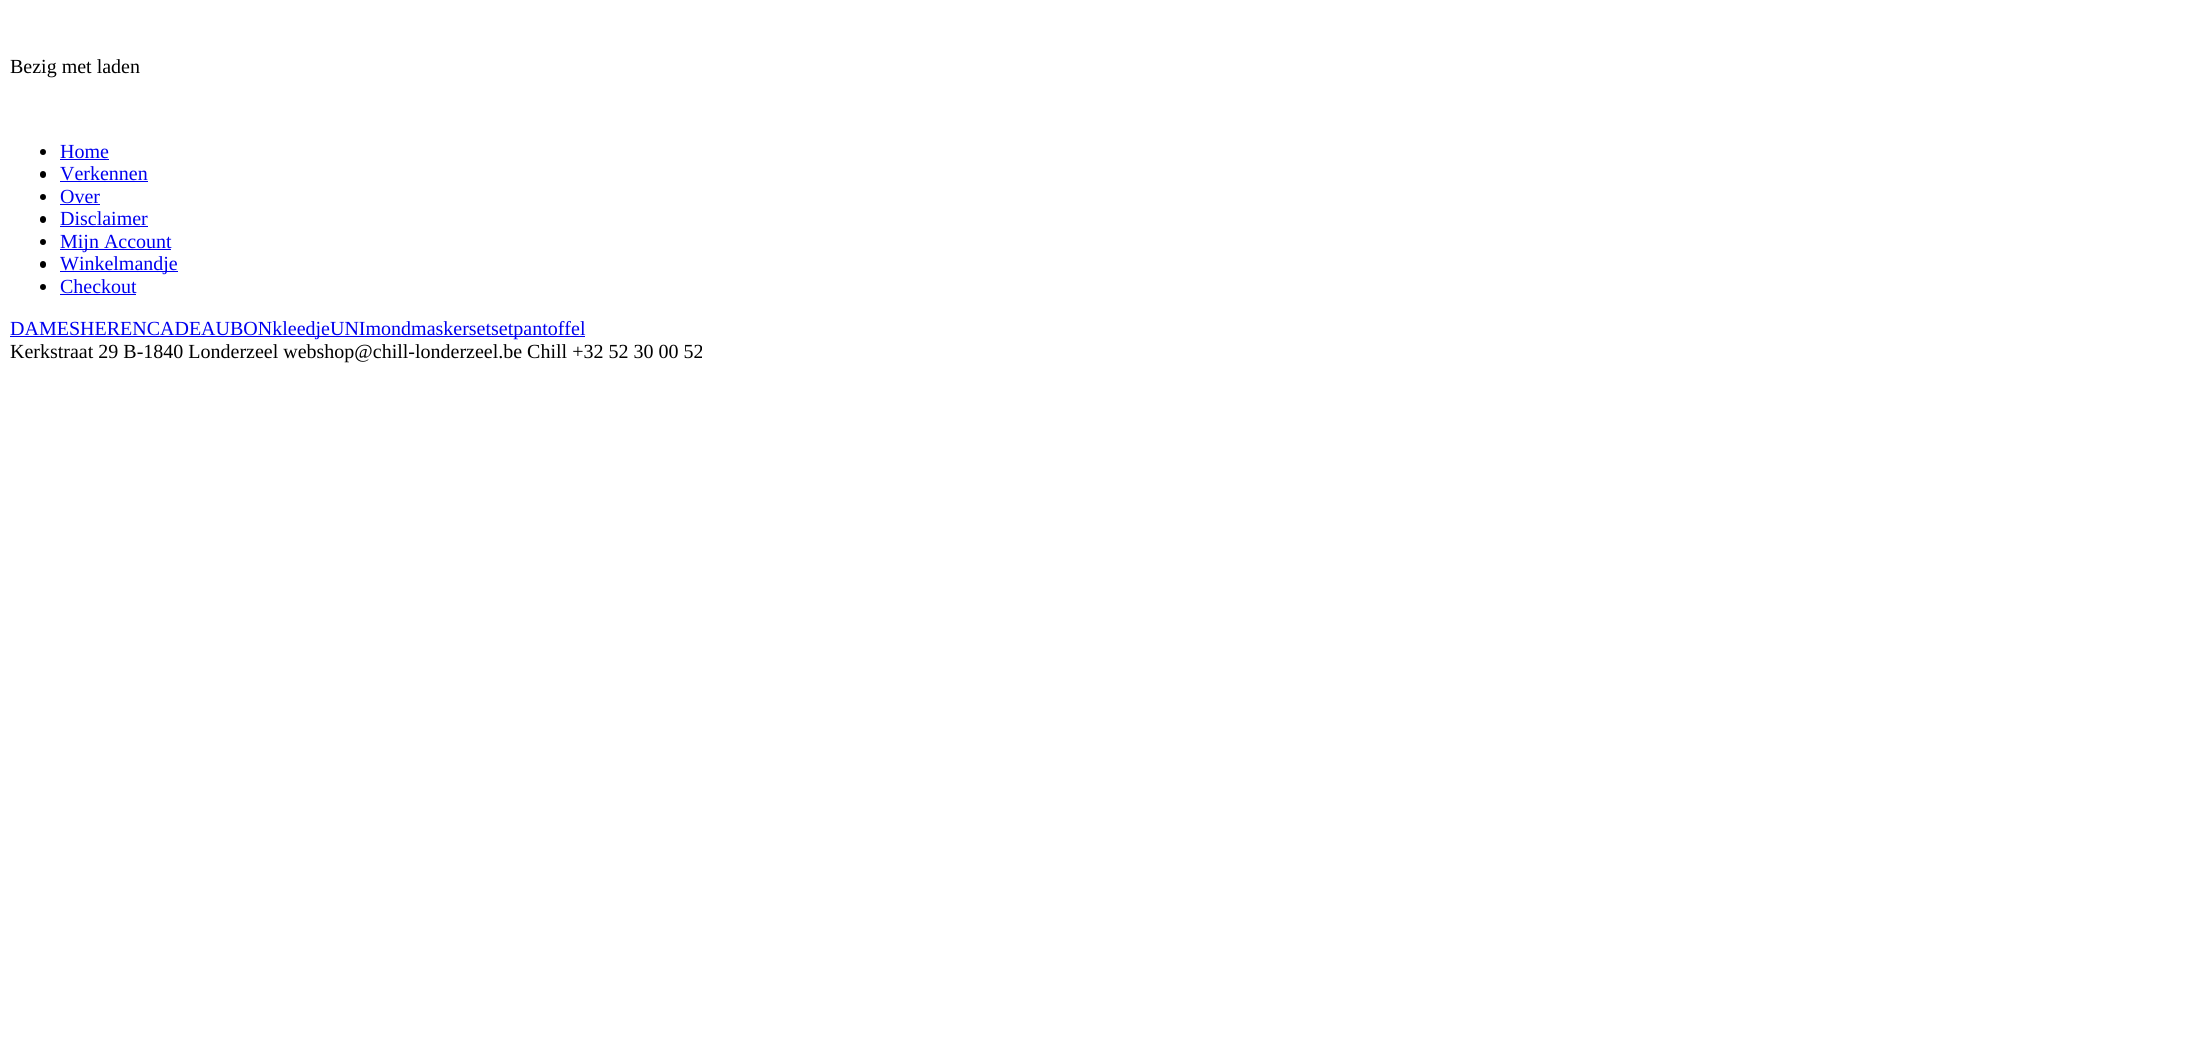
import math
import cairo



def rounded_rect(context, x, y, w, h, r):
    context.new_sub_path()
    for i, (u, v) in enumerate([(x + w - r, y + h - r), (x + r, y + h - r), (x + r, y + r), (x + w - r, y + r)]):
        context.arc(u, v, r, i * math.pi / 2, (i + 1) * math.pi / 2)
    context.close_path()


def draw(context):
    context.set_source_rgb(1, 1, 1)
    context.paint()
    context.set_source_rgb(0, 0, 0)
    context.arc(43, 152, 3, 0, 2 * math.pi)
    context.fill()
    context.set_source_rgb(0, 0, 238 / 255)
    context.rectangle(60, 159, 49, 1)
    context.fill()
    context.set_source_rgb(0, 0, 0)
    rounded_rect(context, 40, 171, 6, 7, 3)
    context.fill()
    context.set_source_rgb(0, 0, 238 / 255)
    context.rectangle(60, 181, 88, 1)
    context.fill()
    context.set_source_rgb(0, 0, 0)
    context.arc(43, 197, 3, 0, 2 * math.pi)
    context.fill()
    context.set_source_rgb(0, 0, 238 / 255)
    context.rectangle(60, 204, 40, 1)
    context.fill()
    context.set_source_rgb(0, 0, 0)
    rounded_rect(context, 40, 216, 6, 7, 3)
    context.fill()
    context.set_source_rgb(0, 0, 238 / 255)
    context.rectangle(60, 226, 88, 1)
    context.fill()
    context.set_source_rgb(0, 0, 0)
    context.arc(43, 242, 3, 0, 2 * math.pi)
    context.fill()
    context.set_source_rgb(0, 0, 238 / 255)
    context.rectangle(60, 249, 111, 1)
    context.fill()
    context.set_source_rgb(0, 0, 0)
    rounded_rect(context, 40, 261, 6, 7, 3)
    context.fill()
    context.set_source_rgb(0, 0, 238 / 255)
    context.rectangle(60, 271, 118, 1)
    context.fill()
    context.set_source_rgb(0, 0, 0)
    context.arc(43, 287, 3, 0, 2 * math.pi)
    context.fill()
    context.set_source_rgb(0, 0, 238 / 255)
    context.rectangle(60, 294, 76, 1)
    context.fill()
    context.rectangle(10, 336, 575, 1)
    context.fill()
    context.select_font_face("Liberation Serif")
    context.set_font_size(20)
    context.set_source_rgb(0, 0, 0)
    context.move_to(10, 73)
    context.show_text("Bezig met laden")
    context.set_source_rgb(0, 0, 238 / 255)
    context.move_to(60, 158)
    context.show_text("Home")
    context.move_to(60, 180)
    context.show_text("Verkennen")
    context.move_to(60, 203)
    context.show_text("Over")
    context.move_to(60, 225)
    context.show_text("Disclaimer")
    context.move_to(60, 248)
    context.show_text("Mijn Account")
    context.move_to(60, 270)
    context.show_text("Winkelmandje")
    context.move_to(60, 293)
    context.show_text("Checkout")
    context.move_to(10, 335)
    context.show_text("DAMESHERENCADEAUBONkleedjeUNImondmaskersetsetpantoffel")
    context.set_source_rgb(0, 0, 0)
    context.move_to(10, 358)
    context.show_text("Kerkstraat 29 B-1840 Londerzeel webshop@chill-londerzeel.be Chill +32 52 30 00 52")


surface = cairo.ImageSurface(cairo.Format.RGB24, 2200, 1038)
context = cairo.Context(surface)
options = cairo.FontOptions()
options.set_hint_metrics(cairo.HintMetrics.OFF)
options.set_hint_style(cairo.HintStyle.NONE)
context.set_font_options(options)
context.set_miter_limit(4)
draw(context)
surface.write_to_png("out.png")
